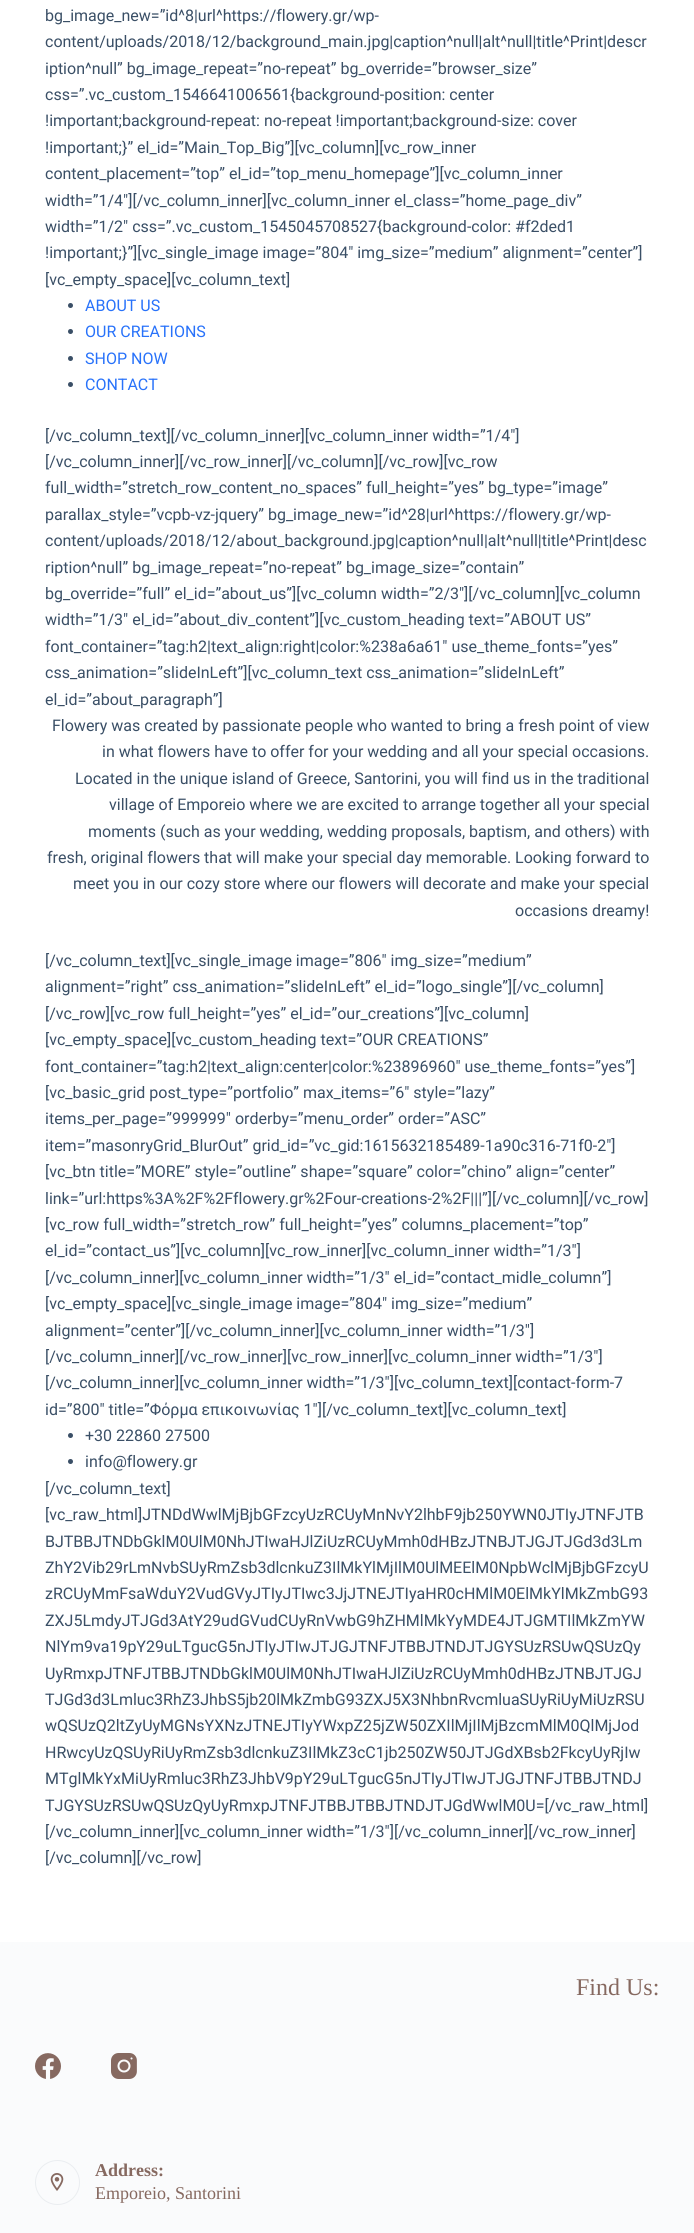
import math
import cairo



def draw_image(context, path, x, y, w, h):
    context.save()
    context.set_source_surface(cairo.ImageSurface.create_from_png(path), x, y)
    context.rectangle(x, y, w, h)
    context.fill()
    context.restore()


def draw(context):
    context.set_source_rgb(1, 1, 1)
    context.paint()
    context.set_source_rgb(58 / 255, 79 / 255, 102 / 255)
    context.arc(70.5, 305.5, 2.5, 0, 2 * math.pi)
    context.fill()
    context.arc(70.5, 331.5, 2.5, 0, 2 * math.pi)
    context.fill()
    context.arc(70.5, 358.5, 2.5, 0, 2 * math.pi)
    context.fill()
    context.arc(70.5, 384.5, 2.5, 0, 2 * math.pi)
    context.fill()
    context.arc(70.5, 1435.5, 2.5, 0, 2 * math.pi)
    context.fill()
    context.arc(70.5, 1461.5, 2.5, 0, 2 * math.pi)
    context.fill()
    context.set_source_rgb(250 / 255, 251 / 255, 252 / 255)
    context.rectangle(0, 1942, 694, 291)
    context.fill()
    draw_image(context, "images/1.png", 35, 2053, 26, 26)
    draw_image(context, "images/2.png", 111, 2053, 26, 26)
    context.arc(57.5, 2182.5, 22, 0, 2 * math.pi)
    context.set_source_rgb(234 / 255, 237 / 255, 240 / 255)
    context.set_line_width(1)
    context.stroke()
    draw_image(context, "images/3.png", 50, 2173, 14, 18)
    context.select_font_face("Roboto")
    context.set_font_size(16)
    context.set_source_rgb(58 / 255, 79 / 255, 102 / 255)
    context.move_to(45, 21)
    context.show_text("bg_image_new=”id^8|url^https://flowery.gr/wp-")
    context.move_to(45, 47)
    context.show_text("content/uploads/2018/12/background_main.jpg|caption^null|alt^null|title^Print|descr")
    context.move_to(45, 74)
    context.show_text("iption^null” bg_image_repeat=”no-repeat” bg_override=”browser_size”")
    context.move_to(45, 100)
    context.show_text("css=”.vc_custom_1546641006561{background-position: center")
    context.move_to(45, 126)
    context.show_text("!important;background-repeat: no-repeat !important;background-size: cover")
    context.move_to(45, 153)
    context.show_text("!important;}” el_id=”Main_Top_Big”][vc_column][vc_row_inner")
    context.move_to(45, 179)
    context.show_text("content_placement=”top” el_id=”top_menu_homepage”][vc_column_inner")
    context.move_to(45, 206)
    context.show_text("width=”1/4″][/vc_column_inner][vc_column_inner el_class=”home_page_div”")
    context.move_to(45, 232)
    context.show_text("width=”1/2″ css=”.vc_custom_1545045708527{background-color: #f2ded1")
    context.move_to(45, 258)
    context.show_text("!important;}”][vc_single_image image=”804″ img_size=”medium” alignment=”center”]")
    context.move_to(45, 285)
    context.show_text("[vc_empty_space][vc_column_text]")
    context.set_source_rgb(40 / 255, 114 / 255, 250 / 255)
    context.move_to(85, 311)
    context.show_text("ABOUT US")
    context.move_to(85, 337)
    context.show_text("OUR CREATIONS")
    context.move_to(85, 364)
    context.show_text("SHOP NOW")
    context.move_to(85, 390)
    context.show_text("CONTACT")
    context.set_source_rgb(58 / 255, 79 / 255, 102 / 255)
    context.move_to(45, 441)
    context.show_text("[/vc_column_text][/vc_column_inner][vc_column_inner width=”1/4″]")
    context.move_to(45, 467)
    context.show_text("[/vc_column_inner][/vc_row_inner][/vc_column][/vc_row][vc_row")
    context.move_to(45, 493)
    context.show_text("full_width=”stretch_row_content_no_spaces” full_height=”yes” bg_type=”image”")
    context.move_to(45, 520)
    context.show_text("parallax_style=”vcpb-vz-jquery” bg_image_new=”id^28|url^https://flowery.gr/wp-")
    context.move_to(45, 546)
    context.show_text("content/uploads/2018/12/about_background.jpg|caption^null|alt^null|title^Print|desc")
    context.move_to(45, 573)
    context.show_text("ription^null” bg_image_repeat=”no-repeat” bg_image_size=”contain”")
    context.move_to(45, 599)
    context.show_text("bg_override=”full” el_id=”about_us”][vc_column width=”2/3″][/vc_column][vc_column")
    context.move_to(45, 625)
    context.show_text("width=”1/3″ el_id=”about_div_content”][vc_custom_heading text=”ABOUT US”")
    context.move_to(45, 652)
    context.show_text("font_container=”tag:h2|text_align:right|color:%238a6a61″ use_theme_fonts=”yes”")
    context.move_to(45, 678)
    context.show_text("css_animation=”slideInLeft”][vc_column_text css_animation=”slideInLeft”")
    context.move_to(45, 705)
    context.show_text("el_id=”about_paragraph”]")
    context.move_to(52, 731)
    context.show_text("Flowery was created by passionate people who wanted to bring a fresh point of view")
    context.move_to(102, 757)
    context.show_text("in what flowers have to offer for your wedding and all your special occasions.")
    context.move_to(75, 784)
    context.show_text("Located in the unique island of Greece, Santorini, you will find us in the traditional")
    context.move_to(109, 810)
    context.show_text("village of Emporeio where we are excited to arrange together all your special")
    context.move_to(88, 837)
    context.show_text("moments (such as your wedding, wedding proposals, baptism, and others) with")
    context.move_to(47, 863)
    context.show_text("fresh, original flowers that will make your special day memorable. Looking forward to")
    context.move_to(73, 889)
    context.show_text("meet you in our cozy store where our flowers will decorate and make your special")
    context.move_to(515, 916)
    context.show_text("occasions dreamy!")
    context.move_to(45, 966)
    context.show_text("[/vc_column_text][vc_single_image image=”806″ img_size=”medium”")
    context.move_to(45, 992)
    context.show_text("alignment=”right” css_animation=”slideInLeft” el_id=”logo_single”][/vc_column]")
    context.move_to(45, 1019)
    context.show_text("[/vc_row][vc_row full_height=”yes” el_id=”our_creations”][vc_column]")
    context.move_to(45, 1045)
    context.show_text("[vc_empty_space][vc_custom_heading text=”OUR CREATIONS”")
    context.move_to(45, 1072)
    context.show_text("font_container=”tag:h2|text_align:center|color:%23896960″ use_theme_fonts=”yes”]")
    context.move_to(45, 1098)
    context.show_text("[vc_basic_grid post_type=”portfolio” max_items=”6″ style=”lazy”")
    context.move_to(45, 1124)
    context.show_text("items_per_page=”999999″ orderby=”menu_order” order=”ASC”")
    context.move_to(45, 1151)
    context.show_text("item=”masonryGrid_BlurOut” grid_id=”vc_gid:1615632185489-1a90c316-71f0-2″]")
    context.move_to(45, 1177)
    context.show_text("[vc_btn title=”MORE” style=”outline” shape=”square” color=”chino” align=”center”")
    context.move_to(45, 1204)
    context.show_text("link=”url:https%3A%2F%2Fflowery.gr%2Four-creations-2%2F|||”][/vc_column][/vc_row]")
    context.move_to(45, 1230)
    context.show_text("[vc_row full_width=”stretch_row” full_height=”yes” columns_placement=”top”")
    context.move_to(45, 1256)
    context.show_text("el_id=”contact_us”][vc_column][vc_row_inner][vc_column_inner width=”1/3″]")
    context.move_to(45, 1283)
    context.show_text("[/vc_column_inner][vc_column_inner width=”1/3″ el_id=”contact_midle_column”]")
    context.move_to(45, 1309)
    context.show_text("[vc_empty_space][vc_single_image image=”804″ img_size=”medium”")
    context.move_to(45, 1336)
    context.show_text("alignment=”center”][/vc_column_inner][vc_column_inner width=”1/3″]")
    context.move_to(45, 1362)
    context.show_text("[/vc_column_inner][/vc_row_inner][vc_row_inner][vc_column_inner width=”1/3″]")
    context.move_to(45, 1388)
    context.show_text("[/vc_column_inner][vc_column_inner width=”1/3″][vc_column_text][contact-form-7")
    context.move_to(45, 1415)
    context.show_text("id=”800″ title=”Φόρμα επικοινωνίας 1″][/vc_column_text][vc_column_text]")
    context.move_to(85, 1441)
    context.show_text("+30 22860 27500")
    context.move_to(85, 1467)
    context.show_text("info@flowery.gr")
    context.move_to(45, 1494)
    context.show_text("[/vc_column_text]")
    context.move_to(45, 1520)
    context.show_text("[vc_raw_html]JTNDdWwlMjBjbGFzcyUzRCUyMnNvY2lhbF9jb250YWN0JTIyJTNFJTB")
    context.move_to(45, 1547)
    context.show_text("BJTBBJTNDbGklM0UlM0NhJTIwaHJlZiUzRCUyMmh0dHBzJTNBJTJGJTJGd3d3Lm")
    context.move_to(45, 1573)
    context.show_text("ZhY2Vib29rLmNvbSUyRmZsb3dlcnkuZ3IlMkYlMjIlM0UlMEElM0NpbWclMjBjbGFzcyU")
    context.move_to(45, 1599)
    context.show_text("zRCUyMmFsaWduY2VudGVyJTIyJTIwc3JjJTNEJTIyaHR0cHMlM0ElMkYlMkZmbG93")
    context.move_to(45, 1626)
    context.show_text("ZXJ5LmdyJTJGd3AtY29udGVudCUyRnVwbG9hZHMlMkYyMDE4JTJGMTIlMkZmYW")
    context.move_to(45, 1652)
    context.show_text("NlYm9va19pY29uLTgucG5nJTIyJTIwJTJGJTNFJTBBJTNDJTJGYSUzRSUwQSUzQy")
    context.move_to(45, 1679)
    context.show_text("UyRmxpJTNFJTBBJTNDbGklM0UlM0NhJTIwaHJlZiUzRCUyMmh0dHBzJTNBJTJGJ")
    context.move_to(45, 1705)
    context.show_text("TJGd3d3Lmluc3RhZ3JhbS5jb20lMkZmbG93ZXJ5X3NhbnRvcmluaSUyRiUyMiUzRSU")
    context.move_to(45, 1731)
    context.show_text("wQSUzQ2ltZyUyMGNsYXNzJTNEJTIyYWxpZ25jZW50ZXIlMjIlMjBzcmMlM0QlMjJod")
    context.move_to(45, 1758)
    context.show_text("HRwcyUzQSUyRiUyRmZsb3dlcnkuZ3IlMkZ3cC1jb250ZW50JTJGdXBsb2FkcyUyRjIw")
    context.move_to(45, 1784)
    context.show_text("MTglMkYxMiUyRmluc3RhZ3JhbV9pY29uLTgucG5nJTIyJTIwJTJGJTNFJTBBJTNDJ")
    context.move_to(45, 1811)
    context.show_text("TJGYSUzRSUwQSUzQyUyRmxpJTNFJTBBJTBBJTNDJTJGdWwlM0U=[/vc_raw_html]")
    context.move_to(45, 1837)
    context.show_text("[/vc_column_inner][vc_column_inner width=”1/3″][/vc_column_inner][/vc_row_inner]")
    context.move_to(45, 1863)
    context.show_text("[/vc_column][/vc_row]")
    context.select_font_face("Liberation Serif")
    context.set_font_size(24)
    context.set_source_rgb(134 / 255, 105 / 255, 96 / 255)
    context.move_to(576, 1995)
    context.show_text("Find Us:")
    context.select_font_face("Liberation Serif", cairo.FontSlant.NORMAL, cairo.FontWeight.BOLD)
    context.set_font_size(18)
    context.move_to(95, 2176)
    context.show_text("Address:")
    context.select_font_face("Liberation Serif")
    context.move_to(95, 2199)
    context.show_text("Emporeio, Santorini")


surface = cairo.ImageSurface(cairo.Format.RGB24, 694, 2233)
context = cairo.Context(surface)
options = cairo.FontOptions()
options.set_hint_metrics(cairo.HintMetrics.OFF)
options.set_hint_style(cairo.HintStyle.NONE)
context.set_font_options(options)
context.set_miter_limit(4)
draw(context)
surface.write_to_png("out.png")
